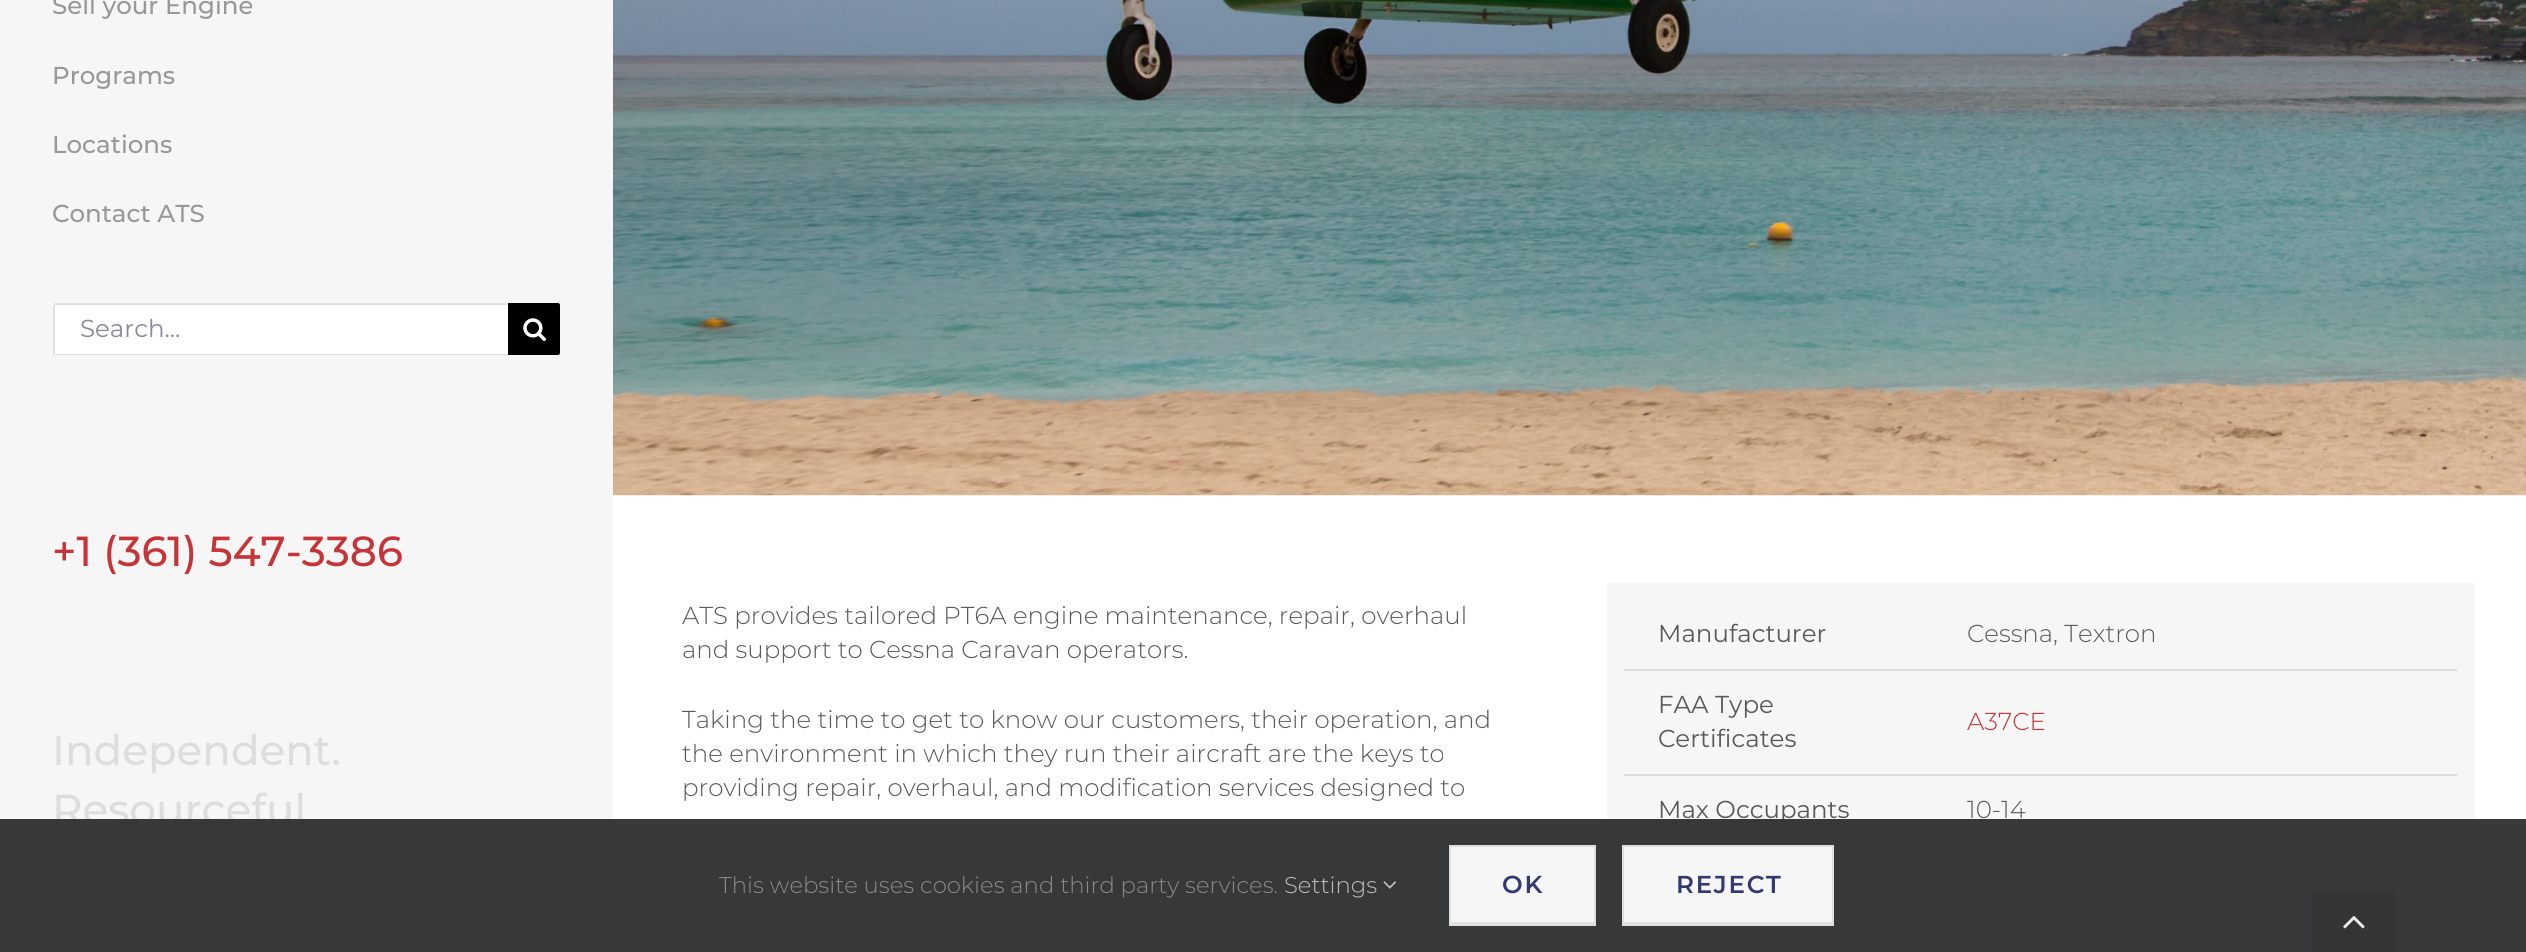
import math
import cairo



def draw_spaced(context, x, y, s, letter, word):
    context.move_to(x, y)
    for ch in s:
        context.show_text(ch)
        context.rel_move_to(letter + word * (ch == ' '), 0)


def draw_image(context, path, x, y, w, h):
    context.save()
    context.set_source_surface(cairo.ImageSurface.create_from_png(path), x, y)
    context.rectangle(x, y, w, h)
    context.fill()
    context.restore()


def draw(context):
    context.set_source_rgb(1, 1, 1)
    context.paint()
    context.set_source_rgb(246 / 255, 246 / 255, 246 / 255)
    context.rectangle(0, 0, 613, 819)
    context.fill()
    context.set_source_rgb(1, 1, 1)
    context.new_path()
    context.move_to(55, 303)
    context.line_to(508, 303)
    context.line_to(508, 355)
    context.line_to(55, 355)
    context.curve_to(54, 355, 53, 354, 53, 353)
    context.line_to(53, 305)
    context.curve_to(53, 304, 54, 303, 55, 303)
    context.close_path()
    context.fill()
    context.set_source_rgb(224 / 255, 224 / 255, 224 / 255)
    context.rectangle(54, 303, 454, 2)
    context.fill()
    context.rectangle(54, 354, 454, 1)
    context.fill()
    context.new_path()
    context.move_to(53, 305)
    context.line_to(55, 305)
    context.line_to(55, 355)
    context.curve_to(54, 355, 53, 354, 53, 353)
    context.close_path()
    context.fill()
    context.set_source_rgb(0, 0, 0)
    context.new_path()
    context.move_to(508, 303)
    context.line_to(558, 303)
    context.curve_to(559, 303, 560, 304, 560, 305)
    context.line_to(560, 353)
    context.curve_to(560, 354, 559, 355, 558, 355)
    context.line_to(508, 355)
    context.close_path()
    context.fill()
    draw_image(context, "images/1.png", 523, 318, 23, 23)
    draw_image(context, "images/2.png", 613, 0, 1913, 496)
    context.set_source_rgb(246 / 255, 246 / 255, 246 / 255)
    context.rectangle(1607, 583, 868, 236)
    context.fill()
    context.set_source_rgb(220 / 255, 220 / 255, 220 / 255)
    context.rectangle(1624, 669, 833, 2)
    context.fill()
    context.rectangle(1624, 774, 833, 2)
    context.fill()
    context.select_font_face("Montserrat Medium")
    context.set_font_size(24.5)
    context.set_source_rgb(155 / 255, 151 / 255, 150 / 255)
    context.move_to(52, 14)
    context.show_text("Sell your Engine")
    context.move_to(52, 84)
    context.show_text("Programs")
    context.move_to(52, 153)
    context.show_text("Locations")
    context.move_to(52, 222)
    context.show_text("Contact ATS")
    context.select_font_face("Montserrat")
    context.set_source_rgb(133 / 255, 138 / 255, 159 / 255)
    context.move_to(80, 337)
    context.show_text("Search...")
    context.select_font_face("Montserrat Medium")
    context.set_font_size(42)
    context.set_source_rgb(198 / 255, 52 / 255, 55 / 255)
    context.move_to(52, 566)
    context.show_text("+1 (361) 547-3386")
    context.set_source_rgb(221 / 255, 221 / 255, 221 / 255)
    context.move_to(52, 765)
    context.show_text("Independent.")
    context.move_to(52, 824)
    context.show_text("Resourceful")
    context.select_font_face("Montserrat Light")
    context.set_font_size(24.5)
    context.set_source_rgb(88 / 255, 89 / 255, 91 / 255)
    context.move_to(682, 624)
    context.show_text("ATS provides tailored PT6A engine maintenance, repair, overhaul")
    context.move_to(682, 658)
    context.show_text("and support to Cessna Caravan operators.")
    context.move_to(682, 728)
    context.show_text("Taking the time to get to know our customers, their operation, and")
    context.move_to(682, 762)
    context.show_text("the environment in which they run their aircraft are the keys to")
    context.move_to(682, 796)
    context.show_text("providing repair, overhaul, and modification services designed to")
    context.select_font_face("Montserrat")
    context.move_to(1658, 642)
    context.show_text("Manufacturer")
    context.select_font_face("Montserrat Light")
    context.move_to(1967, 642)
    context.show_text("Cessna, Textron")
    context.select_font_face("Montserrat")
    context.move_to(1658, 713)
    context.show_text("FAA Type")
    context.move_to(1658, 747)
    context.show_text("Certificates")
    context.select_font_face("Montserrat Light")
    context.set_source_rgb(198 / 255, 52 / 255, 55 / 255)
    context.move_to(1967, 730)
    context.show_text("A37CE")
    context.select_font_face("Montserrat")
    context.set_source_rgb(88 / 255, 89 / 255, 91 / 255)
    context.move_to(1658, 818)
    context.show_text("Max Occupants")
    context.select_font_face("Montserrat Light")
    context.move_to(1967, 818)
    context.show_text("10-14")
    context.set_source_rgb(54 / 255, 56 / 255, 57 / 255)
    context.rectangle(0, 819, 2526, 133)
    context.fill()
    context.set_font_size(22.75)
    context.set_source_rgb(140 / 255, 137 / 255, 137 / 255)
    context.move_to(719, 893)
    context.show_text("This website uses cookies and third party services.")
    context.set_source_rgb(191 / 255, 191 / 255, 191 / 255)
    context.move_to(1284, 893)
    context.show_text("Settings")
    draw_image(context, "images/3.png", 1383, 881, 14, 8)
    context.set_source_rgb(246 / 255, 246 / 255, 246 / 255)
    context.rectangle(1451, 847, 143, 75)
    context.fill()
    context.set_source_rgb(224 / 255, 222 / 255, 222 / 255)
    context.rectangle(1449, 845, 147, 2)
    context.fill()
    context.rectangle(1594, 845, 2, 81)
    context.fill()
    context.rectangle(1449, 922, 147, 4)
    context.fill()
    context.rectangle(1449, 845, 2, 81)
    context.fill()
    context.select_font_face("Montserrat SemiBold")
    context.set_font_size(24.5)
    context.set_source_rgb(52 / 255, 57 / 255, 115 / 255)
    draw_spaced(context, 1502, 893, "OK", 1.75, 0)
    context.set_source_rgb(246 / 255, 246 / 255, 246 / 255)
    context.rectangle(1624, 847, 208, 75)
    context.fill()
    context.set_source_rgb(224 / 255, 222 / 255, 222 / 255)
    context.rectangle(1622, 845, 212, 2)
    context.fill()
    context.rectangle(1832, 845, 2, 81)
    context.fill()
    context.rectangle(1622, 922, 212, 4)
    context.fill()
    context.rectangle(1622, 845, 2, 81)
    context.fill()
    context.set_source_rgb(52 / 255, 57 / 255, 115 / 255)
    draw_spaced(context, 1676, 893, "REJECT", 1.75, 0)
    context.set_source_rgb(51 / 255, 52 / 255, 52 / 255)
    context.new_path()
    context.move_to(2319, 891)
    context.line_to(2389, 891)
    context.curve_to(2393, 891, 2396, 894, 2396, 898)
    context.line_to(2396, 952)
    context.line_to(2312, 952)
    context.line_to(2312, 898)
    context.curve_to(2312, 894, 2315, 891, 2319, 891)
    context.close_path()
    context.fill()
    draw_image(context, "images/4.png", 2343, 916, 22, 13)


surface = cairo.ImageSurface(cairo.Format.RGB24, 2526, 952)
context = cairo.Context(surface)
options = cairo.FontOptions()
options.set_hint_metrics(cairo.HintMetrics.OFF)
options.set_hint_style(cairo.HintStyle.NONE)
context.set_font_options(options)
context.set_miter_limit(4)
draw(context)
surface.write_to_png("out.png")
